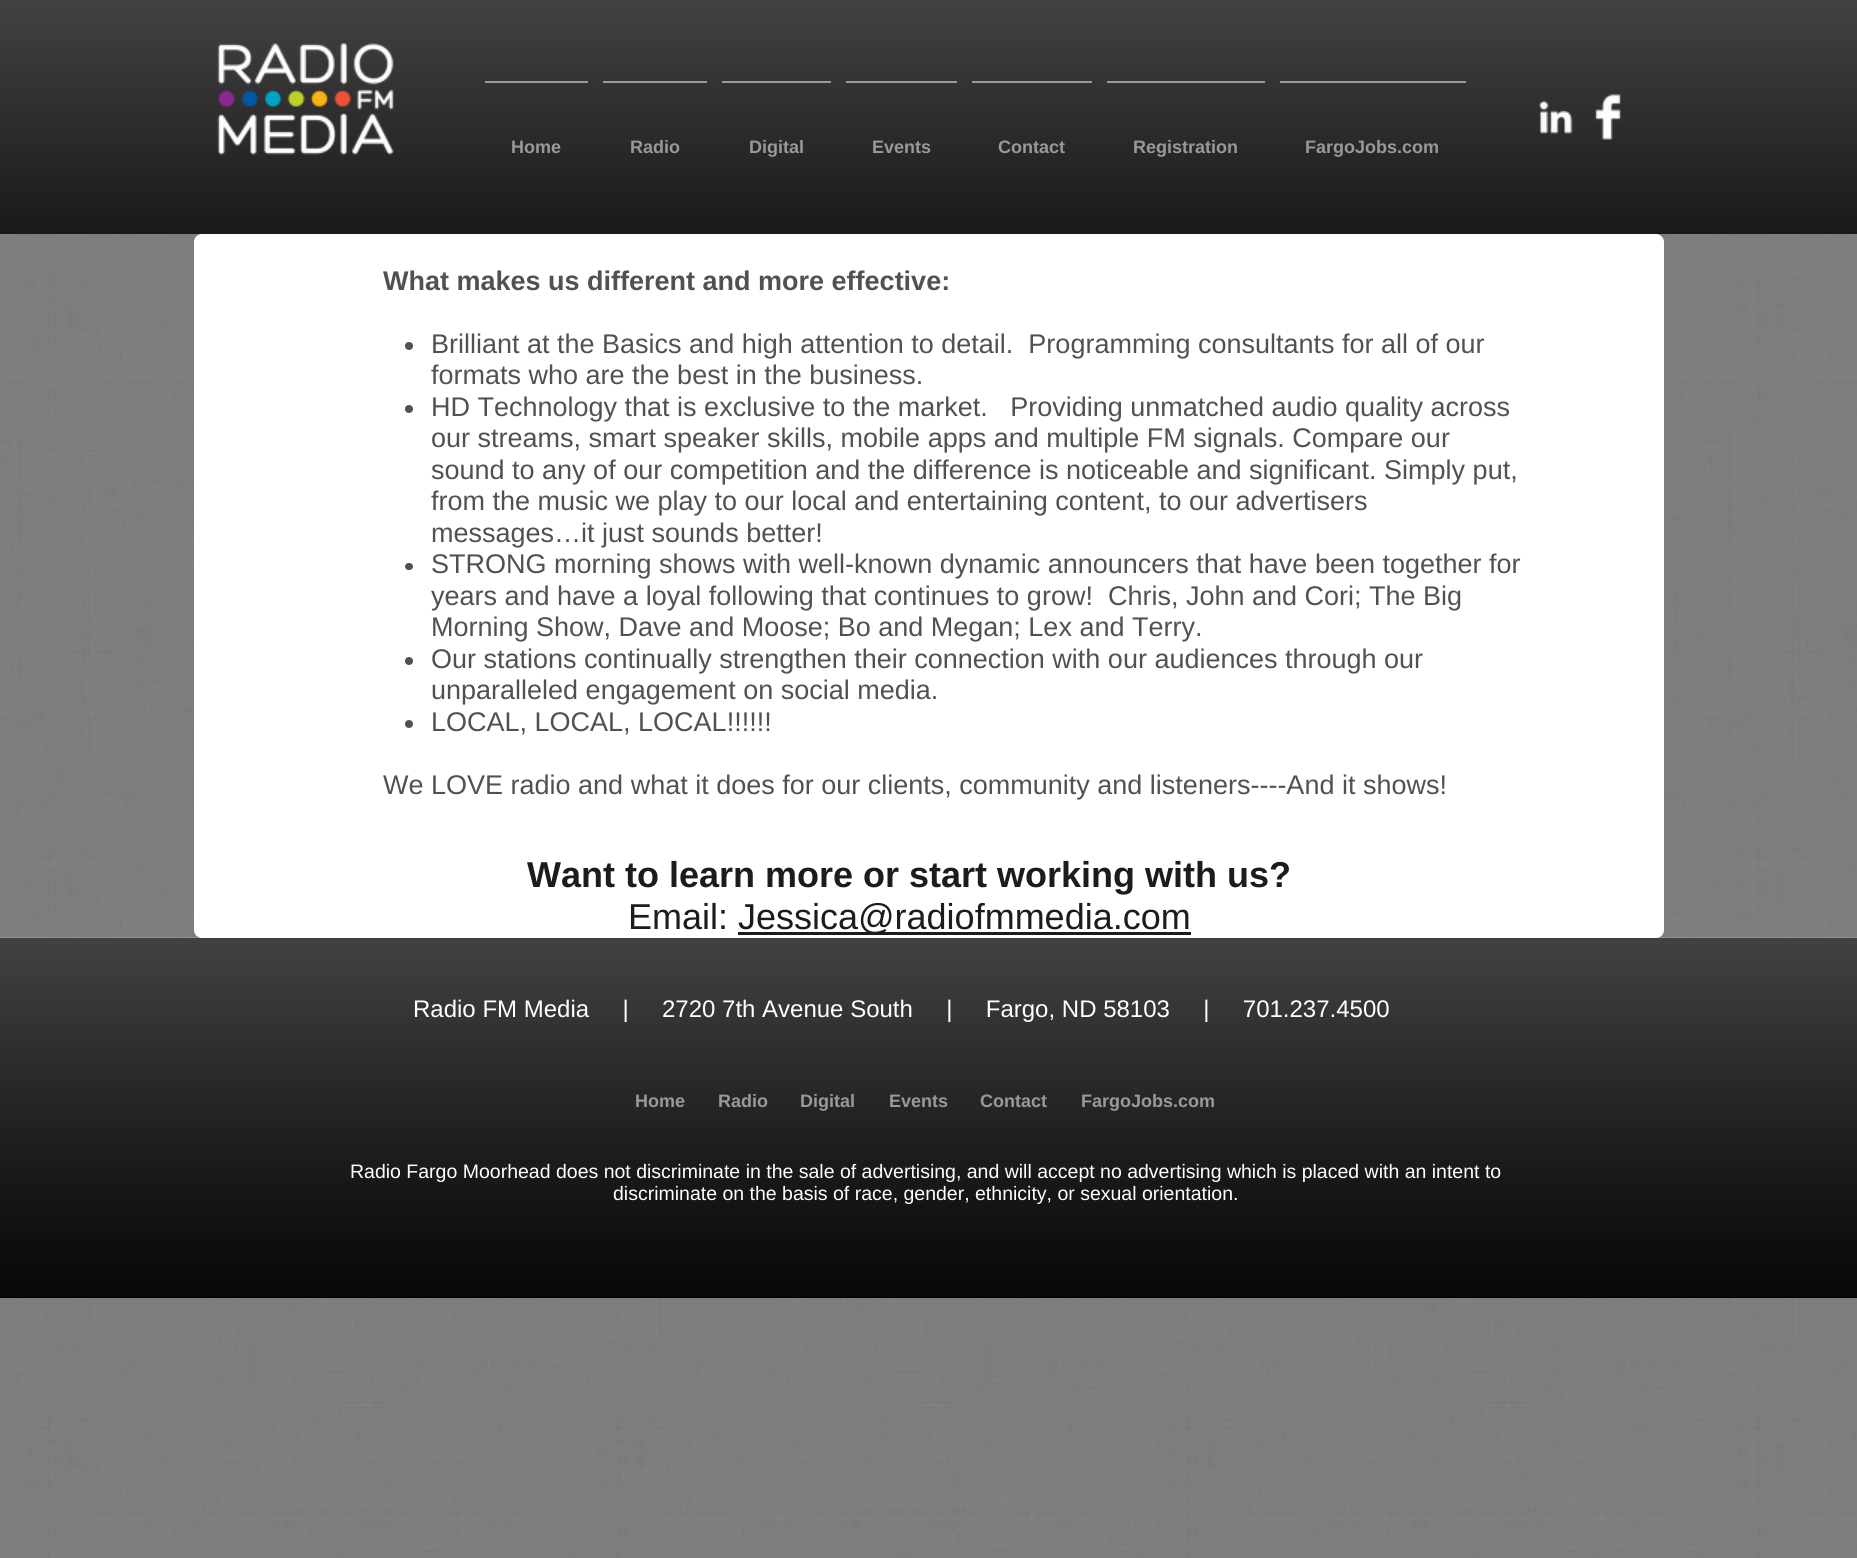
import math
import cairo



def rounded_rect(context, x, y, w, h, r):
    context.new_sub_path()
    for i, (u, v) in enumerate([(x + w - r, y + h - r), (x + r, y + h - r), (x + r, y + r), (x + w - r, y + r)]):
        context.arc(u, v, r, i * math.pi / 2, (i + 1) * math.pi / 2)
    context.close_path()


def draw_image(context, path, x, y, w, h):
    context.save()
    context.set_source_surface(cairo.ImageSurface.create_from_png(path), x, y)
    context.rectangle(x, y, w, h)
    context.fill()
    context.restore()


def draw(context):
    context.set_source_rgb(1, 1, 1)
    context.paint()
    context.set_source_rgb(0, 0, 0)
    context.rectangle(0, 0, 1857, 234)
    context.fill()
    draw_image(context, "images/1.png", 0, 0, 1857, 234)
    draw_image(context, "images/2.png", 217, 43, 177, 112)
    draw_image(context, "images/3.png", 1538, 100, 35, 34)
    draw_image(context, "images/4.png", 1595, 94, 26, 46)
    context.set_source_rgb(153 / 255, 153 / 255, 153 / 255)
    context.rectangle(485, 81, 103, 2)
    context.fill()
    context.rectangle(603, 81, 104, 2)
    context.fill()
    context.rectangle(722, 81, 109, 2)
    context.fill()
    context.rectangle(846, 81, 111, 2)
    context.fill()
    context.rectangle(972, 81, 120, 2)
    context.fill()
    context.rectangle(1107, 81, 158, 2)
    context.fill()
    context.rectangle(1280, 81, 186, 2)
    context.fill()
    draw_image(context, "images/6.png", 0, 234, 1857, 1324)
    context.set_source_rgb(1, 1, 1)
    rounded_rect(context, 194, 234, 1470, 704, 8)
    context.fill()
    context.set_source_rgb(81 / 255, 81 / 255, 81 / 255)
    context.arc(409, 346, 4, 0, 2 * math.pi)
    context.fill()
    context.arc(409, 409, 4, 0, 2 * math.pi)
    context.fill()
    rounded_rect(context, 405, 563, 8, 7, 3.5)
    context.fill()
    context.arc(409, 661, 4, 0, 2 * math.pi)
    context.fill()
    context.arc(409, 724, 4, 0, 2 * math.pi)
    context.fill()
    context.set_source_rgb(28 / 255, 28 / 255, 28 / 255)
    context.rectangle(738, 932, 453, 3)
    context.fill()
    context.set_source_rgb(0, 0, 0)
    context.rectangle(0, 938, 1857, 360)
    context.fill()
    draw_image(context, "images/5.png", 0, 937, 1857, 360)
    context.select_font_face("Liberation Sans", cairo.FontSlant.NORMAL, cairo.FontWeight.BOLD)
    context.set_font_size(18)
    context.set_source_rgb(153 / 255, 153 / 255, 153 / 255)
    context.move_to(511, 153)
    context.show_text("Home")
    context.move_to(630, 153)
    context.show_text("Radio")
    context.move_to(749, 153)
    context.show_text("Digital")
    context.move_to(872, 153)
    context.show_text("Events")
    context.move_to(998, 153)
    context.show_text("Contact")
    context.move_to(1133, 153)
    context.show_text("Registration")
    context.move_to(1305, 153)
    context.show_text("FargoJobs.com")
    context.set_font_size(27)
    context.set_source_rgb(81 / 255, 81 / 255, 81 / 255)
    context.move_to(383, 290)
    context.show_text("What makes us different and more effective:")
    context.select_font_face("Liberation Sans")
    context.move_to(431, 353)
    context.show_text("Brilliant at the Basics and high attention to detail.  Programming consultants for all of our")
    context.move_to(431, 384)
    context.show_text("formats who are the best in the business.")
    context.move_to(431, 416)
    context.show_text("HD Technology that is exclusive to the market.   Providing unmatched audio quality across")
    context.move_to(431, 447)
    context.show_text("our streams, smart speaker skills, mobile apps and multiple FM signals. Compare our")
    context.move_to(431, 479)
    context.show_text("sound to any of our competition and the difference is noticeable and significant. Simply put,")
    context.move_to(431, 510)
    context.show_text("from the music we play to our local and entertaining content, to our advertisers")
    context.move_to(431, 542)
    context.show_text("messages…it just sounds better!")
    context.move_to(431, 573)
    context.show_text("STRONG morning shows with well-known dynamic announcers that have been together for")
    context.move_to(431, 605)
    context.show_text("years and have a loyal following that continues to grow!  Chris, John and Cori; The Big")
    context.move_to(431, 636)
    context.show_text("Morning Show, Dave and Moose; Bo and Megan; Lex and Terry.")
    context.move_to(431, 668)
    context.show_text("Our stations continually strengthen their connection with our audiences through our")
    context.move_to(431, 699)
    context.show_text("unparalleled engagement on social media.")
    context.move_to(431, 731)
    context.show_text("LOCAL, LOCAL, LOCAL!!!!!!")
    context.move_to(383, 794)
    context.show_text("We LOVE radio and what it does for our clients, community and listeners----And it shows!")
    context.select_font_face("Liberation Sans", cairo.FontSlant.NORMAL, cairo.FontWeight.BOLD)
    context.set_font_size(36)
    context.set_source_rgb(28 / 255, 28 / 255, 28 / 255)
    context.move_to(527, 887)
    context.show_text("Want to learn more or start working with us?")
    context.select_font_face("Liberation Sans")
    context.move_to(628, 929)
    context.show_text("Email:")
    context.move_to(738, 929)
    context.show_text("Jessica@radiofmmedia.com")
    context.set_font_size(24)
    context.set_source_rgb(1, 1, 1)
    context.move_to(413, 1017)
    context.show_text("Radio FM Media     |     2720 7th Avenue South     |     Fargo, ND 58103     |     701.237.4500")
    context.select_font_face("Liberation Sans", cairo.FontSlant.NORMAL, cairo.FontWeight.BOLD)
    context.set_font_size(18)
    context.set_source_rgb(153 / 255, 153 / 255, 153 / 255)
    context.move_to(635, 1107)
    context.show_text("Home")
    context.move_to(718, 1107)
    context.show_text("Radio")
    context.move_to(800, 1107)
    context.show_text("Digital")
    context.move_to(889, 1107)
    context.show_text("Events")
    context.move_to(980, 1107)
    context.show_text("Contact")
    context.move_to(1081, 1107)
    context.show_text("FargoJobs.com")
    context.select_font_face("Liberation Sans")
    context.set_font_size(19.5)
    context.set_source_rgb(1, 1, 1)
    context.move_to(350, 1178)
    context.show_text("Radio Fargo Moorhead does not discriminate in the sale of advertising, and will accept no advertising which is placed with an intent to")
    context.move_to(613, 1200)
    context.show_text("discriminate on the basis of race, gender, ethnicity, or sexual orientation.")


surface = cairo.ImageSurface(cairo.Format.RGB24, 1857, 1558)
context = cairo.Context(surface)
options = cairo.FontOptions()
options.set_hint_metrics(cairo.HintMetrics.OFF)
options.set_hint_style(cairo.HintStyle.NONE)
context.set_font_options(options)
context.set_miter_limit(4)
draw(context)
surface.write_to_png("out.png")
